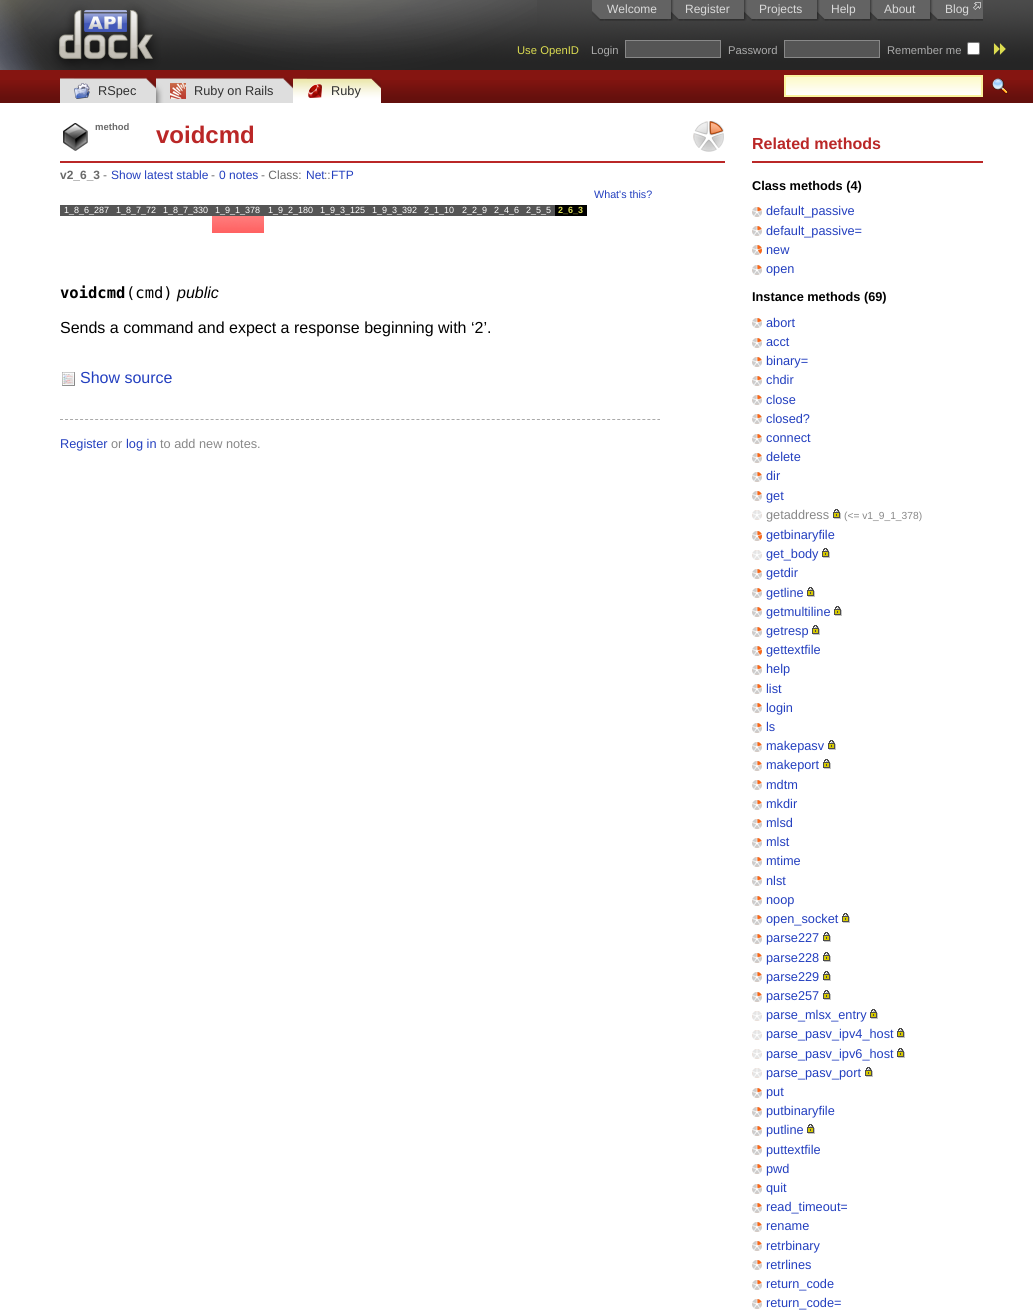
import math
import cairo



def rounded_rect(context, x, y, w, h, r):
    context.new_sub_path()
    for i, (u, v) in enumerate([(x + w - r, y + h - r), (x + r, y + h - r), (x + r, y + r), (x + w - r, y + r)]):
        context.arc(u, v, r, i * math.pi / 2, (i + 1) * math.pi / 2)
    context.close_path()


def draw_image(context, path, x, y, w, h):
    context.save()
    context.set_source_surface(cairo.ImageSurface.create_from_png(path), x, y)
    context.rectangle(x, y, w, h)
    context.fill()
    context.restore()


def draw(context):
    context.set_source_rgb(1, 1, 1)
    context.paint()
    draw_image(context, "images/1.png", 0, 0, 1033, 70)
    draw_image(context, "images/2.png", 0, 0, 537, 70)
    draw_image(context, "images/3.png", 592, 0, 79, 21)
    draw_image(context, "images/4.png", 671, 0, 73, 21)
    draw_image(context, "images/5.png", 744, 0, 73, 21)
    draw_image(context, "images/6.png", 817, 0, 53, 21)
    draw_image(context, "images/7.png", 870, 0, 60, 21)
    draw_image(context, "images/8.png", 930, 0, 53, 21)
    draw_image(context, "images/9.png", 973, 2, 8, 8)
    context.set_source_rgb(85 / 255, 85 / 255, 85 / 255)
    context.rectangle(625.5, 40.5, 95, 17)
    context.fill_preserve()
    context.set_source_rgb(136 / 255, 136 / 255, 136 / 255)
    context.set_line_width(1)
    context.stroke()
    context.set_source_rgb(85 / 255, 85 / 255, 85 / 255)
    context.rectangle(784.5, 40.5, 95, 17)
    context.fill_preserve()
    context.set_source_rgb(136 / 255, 136 / 255, 136 / 255)
    context.stroke()
    context.set_source_rgb(1, 1, 1)
    rounded_rect(context, 967.5, 42.5, 12, 12, 1.5)
    context.fill_preserve()
    context.set_source_rgb(118 / 255, 118 / 255, 118 / 255)
    context.stroke()
    draw_image(context, "images/10.png", 993, 43, 13, 12)
    context.set_source_rgb(133 / 255, 21 / 255, 17 / 255)
    context.rectangle(0, 70, 1033, 33)
    context.fill()
    draw_image(context, "images/11.png", 0, 80, 1033, 23)
    draw_image(context, "images/12.png", 60, 77, 96, 26)
    context.set_source_rgb(174 / 255, 123 / 255, 121 / 255)
    context.rectangle(60, 78, 14, 1)
    context.fill()
    draw_image(context, "images/13.png", 74, 83, 16, 16)
    draw_image(context, "images/14.png", 156, 77, 137, 26)
    draw_image(context, "images/15.png", 156, 78, 14, 25)
    draw_image(context, "images/16.png", 170, 83, 16, 16)
    draw_image(context, "images/17.png", 293, 77, 88, 26)
    context.set_source_rgb(157 / 255, 82 / 255, 60 / 255)
    context.rectangle(293, 78, 14, 1)
    context.fill()
    draw_image(context, "images/18.png", 308, 84, 14, 14)
    context.set_source_rgb(1, 1, 1)
    context.rectangle(786, 94, 195, 1)
    context.fill()
    draw_image(context, "images/19.png", 786, 77, 195, 17)
    context.rectangle(785, 76, 197, 20)
    context.set_source_rgb(250 / 255, 243 / 255, 157 / 255)
    context.set_line_width(2)
    context.stroke()
    draw_image(context, "images/20.png", 992, 78, 16, 16)
    context.set_source_rgb(186 / 255, 39 / 255, 39 / 255)
    context.rectangle(60, 161, 665, 2)
    context.fill()
    draw_image(context, "images/21.png", 63, 123, 25, 28)
    draw_image(context, "images/22.png", 693, 121, 31, 31)
    context.set_source_rgb(85 / 255, 85 / 255, 85 / 255)
    context.rectangle(60, 205, 495, 11)
    context.fill()
    draw_image(context, "images/23.png", 212, 216, 52, 17)
    context.set_source_rgb(0, 0, 0)
    context.rectangle(555, 205, 32, 11)
    context.fill()
    context.set_source_rgb(186 / 255, 39 / 255, 39 / 255)
    context.rectangle(752, 161, 231, 2)
    context.fill()
    draw_image(context, "images/24.png", 752, 207, 10, 10)
    draw_image(context, "images/24.png", 752, 226, 10, 10)
    draw_image(context, "images/25.png", 752, 245, 10, 10)
    draw_image(context, "images/24.png", 752, 265, 10, 10)
    draw_image(context, "images/24.png", 752, 318, 10, 10)
    draw_image(context, "images/24.png", 752, 338, 10, 10)
    draw_image(context, "images/24.png", 752, 357, 10, 10)
    draw_image(context, "images/24.png", 752, 376, 10, 10)
    draw_image(context, "images/24.png", 752, 395, 10, 10)
    draw_image(context, "images/24.png", 752, 414, 10, 10)
    draw_image(context, "images/24.png", 752, 434, 10, 10)
    draw_image(context, "images/24.png", 752, 453, 10, 10)
    draw_image(context, "images/24.png", 752, 472, 10, 10)
    draw_image(context, "images/24.png", 752, 491, 10, 10)
    draw_image(context, "images/26.png", 752, 510, 10, 10)
    draw_image(context, "images/27.png", 833, 509, 8, 10)
    draw_image(context, "images/25.png", 752, 531, 10, 10)
    draw_image(context, "images/26.png", 752, 550, 10, 10)
    draw_image(context, "images/27.png", 822, 548, 8, 10)
    draw_image(context, "images/24.png", 752, 569, 10, 10)
    draw_image(context, "images/24.png", 752, 588, 10, 10)
    draw_image(context, "images/27.png", 807, 587, 8, 10)
    draw_image(context, "images/24.png", 752, 607, 10, 10)
    draw_image(context, "images/27.png", 834, 606, 8, 10)
    draw_image(context, "images/24.png", 752, 627, 10, 10)
    draw_image(context, "images/27.png", 812, 625, 8, 10)
    draw_image(context, "images/25.png", 752, 646, 10, 10)
    draw_image(context, "images/24.png", 752, 665, 10, 10)
    draw_image(context, "images/24.png", 752, 684, 10, 10)
    draw_image(context, "images/24.png", 752, 703, 10, 10)
    draw_image(context, "images/24.png", 752, 723, 10, 10)
    draw_image(context, "images/24.png", 752, 742, 10, 10)
    draw_image(context, "images/27.png", 828, 740, 8, 10)
    draw_image(context, "images/24.png", 752, 761, 10, 10)
    draw_image(context, "images/27.png", 823, 759, 8, 10)
    draw_image(context, "images/24.png", 752, 780, 10, 10)
    draw_image(context, "images/24.png", 752, 800, 10, 10)
    draw_image(context, "images/24.png", 752, 819, 10, 10)
    draw_image(context, "images/24.png", 752, 838, 10, 10)
    draw_image(context, "images/24.png", 752, 857, 10, 10)
    draw_image(context, "images/24.png", 752, 876, 10, 10)
    draw_image(context, "images/24.png", 752, 896, 10, 10)
    draw_image(context, "images/24.png", 752, 915, 10, 10)
    draw_image(context, "images/27.png", 842, 913, 8, 10)
    draw_image(context, "images/24.png", 752, 934, 10, 10)
    draw_image(context, "images/27.png", 823, 932, 8, 10)
    draw_image(context, "images/24.png", 752, 953, 10, 10)
    draw_image(context, "images/27.png", 823, 952, 8, 10)
    draw_image(context, "images/24.png", 752, 972, 10, 10)
    draw_image(context, "images/27.png", 823, 971, 8, 10)
    draw_image(context, "images/24.png", 752, 992, 10, 10)
    draw_image(context, "images/27.png", 823, 990, 8, 10)
    draw_image(context, "images/26.png", 752, 1011, 10, 10)
    draw_image(context, "images/27.png", 870, 1009, 8, 10)
    draw_image(context, "images/26.png", 752, 1030, 10, 10)
    draw_image(context, "images/27.png", 897, 1028, 8, 10)
    draw_image(context, "images/26.png", 752, 1049, 10, 10)
    draw_image(context, "images/27.png", 897, 1048, 8, 10)
    draw_image(context, "images/26.png", 752, 1068, 10, 10)
    draw_image(context, "images/27.png", 865, 1067, 8, 10)
    draw_image(context, "images/24.png", 752, 1088, 10, 10)
    draw_image(context, "images/24.png", 752, 1107, 10, 10)
    draw_image(context, "images/24.png", 752, 1126, 10, 10)
    draw_image(context, "images/27.png", 807, 1124, 8, 10)
    draw_image(context, "images/24.png", 752, 1145, 10, 10)
    draw_image(context, "images/24.png", 752, 1164, 10, 10)
    draw_image(context, "images/24.png", 752, 1184, 10, 10)
    draw_image(context, "images/24.png", 752, 1203, 10, 10)
    draw_image(context, "images/24.png", 752, 1222, 10, 10)
    draw_image(context, "images/24.png", 752, 1241, 10, 10)
    draw_image(context, "images/24.png", 752, 1260, 10, 10)
    draw_image(context, "images/24.png", 752, 1280, 10, 10)
    draw_image(context, "images/24.png", 752, 1299, 10, 10)
    draw_image(context, "images/28.png", 62, 372, 13, 14)
    context.new_path()
    context.move_to(60, 419.5)
    context.line_to(660, 419.5)
    context.set_source_rgb(170 / 255, 170 / 255, 170 / 255)
    context.set_line_width(1)
    context.set_dash([3, 2.02])
    context.stroke()
    context.select_font_face("Liberation Sans")
    context.set_font_size(12)
    context.set_source_rgb(218 / 255, 218 / 255, 218 / 255)
    context.move_to(607, 13)
    context.show_text("Welcome")
    context.move_to(685, 13)
    context.show_text("Register")
    context.move_to(759, 13)
    context.show_text("Projects")
    context.move_to(831, 13)
    context.show_text("Help")
    context.move_to(884, 13)
    context.show_text("About")
    context.move_to(945, 13)
    context.show_text("Blog")
    context.set_font_size(11.25)
    context.set_source_rgb(219 / 255, 219 / 255, 81 / 255)
    context.move_to(517, 54)
    context.show_text("Use OpenID")
    context.set_source_rgb(170 / 255, 170 / 255, 170 / 255)
    context.move_to(591, 54)
    context.show_text("Login")
    context.move_to(728, 54)
    context.show_text("Password")
    context.move_to(887, 54)
    context.show_text("Remember me")
    context.set_font_size(12.75)
    context.set_source_rgb(48 / 255, 48 / 255, 48 / 255)
    context.move_to(98, 95)
    context.show_text("RSpec")
    context.move_to(194, 95)
    context.show_text("Ruby on Rails")
    context.move_to(331, 95)
    context.show_text("Ruby")
    context.select_font_face("Liberation Sans", cairo.FontSlant.NORMAL, cairo.FontWeight.BOLD)
    context.set_font_size(9.5)
    context.set_source_rgb(105 / 255, 105 / 255, 105 / 255)
    context.move_to(95, 130)
    context.show_text("method")
    context.set_font_size(24)
    context.set_source_rgb(186 / 255, 39 / 255, 39 / 255)
    context.move_to(156, 143)
    context.show_text("voidcmd")
    context.set_font_size(12)
    context.set_source_rgb(105 / 255, 105 / 255, 105 / 255)
    context.move_to(60, 179)
    context.show_text("v2_6_3")
    context.select_font_face("Liberation Sans")
    context.move_to(103, 179)
    context.show_text("-")
    context.set_source_rgb(35 / 255, 63 / 255, 191 / 255)
    context.move_to(111, 179)
    context.show_text("Show latest stable")
    context.set_source_rgb(105 / 255, 105 / 255, 105 / 255)
    context.move_to(211, 179)
    context.show_text("-")
    context.set_source_rgb(35 / 255, 63 / 255, 191 / 255)
    context.move_to(219, 179)
    context.show_text("0 notes")
    context.set_source_rgb(105 / 255, 105 / 255, 105 / 255)
    context.move_to(261, 179)
    context.show_text("- Class:")
    context.set_source_rgb(35 / 255, 63 / 255, 191 / 255)
    context.move_to(306, 179)
    context.show_text("Net")
    context.set_source_rgb(105 / 255, 105 / 255, 105 / 255)
    context.move_to(324, 179)
    context.show_text("::")
    context.set_source_rgb(35 / 255, 63 / 255, 191 / 255)
    context.move_to(331, 179)
    context.show_text("FTP")
    context.set_font_size(10.75)
    context.move_to(594, 198)
    context.show_text("What's this?")
    context.set_font_size(9)
    context.set_source_rgb(1, 1, 1)
    context.move_to(64, 213)
    context.show_text("1_8_6_287")
    context.move_to(116, 213)
    context.show_text("1_8_7_72")
    context.move_to(163, 213)
    context.show_text("1_8_7_330")
    context.move_to(215, 213)
    context.show_text("1_9_1_378")
    context.move_to(268, 213)
    context.show_text("1_9_2_180")
    context.move_to(320, 213)
    context.show_text("1_9_3_125")
    context.move_to(372, 213)
    context.show_text("1_9_3_392")
    context.move_to(424, 213)
    context.show_text("2_1_10")
    context.move_to(462, 213)
    context.show_text("2_2_9")
    context.move_to(494, 213)
    context.show_text("2_4_6")
    context.move_to(526, 213)
    context.show_text("2_5_5")
    context.select_font_face("Liberation Sans", cairo.FontSlant.NORMAL, cairo.FontWeight.BOLD)
    context.set_source_rgb(219 / 255, 219 / 255, 81 / 255)
    context.move_to(558, 213)
    context.show_text("2_6_3")
    context.set_font_size(16)
    context.set_source_rgb(186 / 255, 39 / 255, 39 / 255)
    context.move_to(752, 149)
    context.show_text("Related methods")
    context.set_font_size(12.75)
    context.set_source_rgb(0, 0, 0)
    context.move_to(752, 190)
    context.show_text("Class methods (4)")
    context.select_font_face("Liberation Sans")
    context.set_source_rgb(35 / 255, 63 / 255, 191 / 255)
    context.move_to(766, 215)
    context.show_text("default_passive")
    context.move_to(766, 235)
    context.show_text("default_passive=")
    context.move_to(766, 254)
    context.show_text("new")
    context.move_to(766, 273)
    context.show_text("open")
    context.select_font_face("Liberation Sans", cairo.FontSlant.NORMAL, cairo.FontWeight.BOLD)
    context.set_source_rgb(0, 0, 0)
    context.move_to(752, 301)
    context.show_text("Instance methods (69)")
    context.select_font_face("Liberation Sans")
    context.set_source_rgb(35 / 255, 63 / 255, 191 / 255)
    context.move_to(766, 327)
    context.show_text("abort")
    context.move_to(766, 346)
    context.show_text("acct")
    context.move_to(766, 365)
    context.show_text("binary=")
    context.move_to(766, 384)
    context.show_text("chdir")
    context.move_to(766, 404)
    context.show_text("close")
    context.move_to(766, 423)
    context.show_text("closed?")
    context.move_to(766, 442)
    context.show_text("connect")
    context.move_to(766, 461)
    context.show_text("delete")
    context.move_to(766, 480)
    context.show_text("dir")
    context.move_to(766, 500)
    context.show_text("get")
    context.set_source_rgb(136 / 255, 136 / 255, 136 / 255)
    context.move_to(766, 519)
    context.show_text("getaddress")
    context.set_font_size(10.25)
    context.move_to(844, 519)
    context.show_text("(<= v1_9_1_378)")
    context.set_font_size(12.75)
    context.set_source_rgb(35 / 255, 63 / 255, 191 / 255)
    context.move_to(766, 539)
    context.show_text("getbinaryfile")
    context.move_to(766, 558)
    context.show_text("get_body")
    context.move_to(766, 577)
    context.show_text("getdir")
    context.move_to(766, 597)
    context.show_text("getline")
    context.move_to(766, 616)
    context.show_text("getmultiline")
    context.move_to(766, 635)
    context.show_text("getresp")
    context.move_to(766, 654)
    context.show_text("gettextfile")
    context.move_to(766, 673)
    context.show_text("help")
    context.move_to(766, 693)
    context.show_text("list")
    context.move_to(766, 712)
    context.show_text("login")
    context.move_to(766, 731)
    context.show_text("ls")
    context.move_to(766, 750)
    context.show_text("makepasv")
    context.move_to(766, 769)
    context.show_text("makeport")
    context.move_to(766, 789)
    context.show_text("mdtm")
    context.move_to(766, 808)
    context.show_text("mkdir")
    context.move_to(766, 827)
    context.show_text("mlsd")
    context.move_to(766, 846)
    context.show_text("mlst")
    context.move_to(766, 865)
    context.show_text("mtime")
    context.move_to(766, 885)
    context.show_text("nlst")
    context.move_to(766, 904)
    context.show_text("noop")
    context.move_to(766, 923)
    context.show_text("open_socket")
    context.move_to(766, 942)
    context.show_text("parse227")
    context.move_to(766, 962)
    context.show_text("parse228")
    context.move_to(766, 981)
    context.show_text("parse229")
    context.move_to(766, 1000)
    context.show_text("parse257")
    context.move_to(766, 1019)
    context.show_text("parse_mlsx_entry")
    context.move_to(766, 1038)
    context.show_text("parse_pasv_ipv4_host")
    context.move_to(766, 1058)
    context.show_text("parse_pasv_ipv6_host")
    context.move_to(766, 1077)
    context.show_text("parse_pasv_port")
    context.move_to(766, 1096)
    context.show_text("put")
    context.move_to(766, 1115)
    context.show_text("putbinaryfile")
    context.move_to(766, 1134)
    context.show_text("putline")
    context.move_to(766, 1154)
    context.show_text("puttextfile")
    context.move_to(766, 1173)
    context.show_text("pwd")
    context.move_to(766, 1192)
    context.show_text("quit")
    context.move_to(766, 1211)
    context.show_text("read_timeout=")
    context.move_to(766, 1230)
    context.show_text("rename")
    context.move_to(766, 1250)
    context.show_text("retrbinary")
    context.move_to(766, 1269)
    context.show_text("retrlines")
    context.move_to(766, 1288)
    context.show_text("return_code")
    context.move_to(766, 1307)
    context.show_text("return_code=")
    context.select_font_face("DejaVu Sans Mono", cairo.FontSlant.NORMAL, cairo.FontWeight.BOLD)
    context.set_font_size(15.5)
    context.set_source_rgb(0, 0, 0)
    context.move_to(60, 298)
    context.show_text("voidcmd")
    context.select_font_face("DejaVu Sans Mono")
    context.move_to(126, 298)
    context.show_text("(cmd)")
    context.select_font_face("Liberation Sans", cairo.FontSlant.ITALIC)
    context.set_font_size(16)
    context.move_to(177, 298)
    context.show_text("public")
    context.select_font_face("Liberation Sans")
    context.move_to(60, 333)
    context.show_text("Sends a command and expect a response beginning with ‘2’.")
    context.set_source_rgb(35 / 255, 63 / 255, 191 / 255)
    context.move_to(80, 383)
    context.show_text("Show source")
    context.set_font_size(12.75)
    context.move_to(60, 448)
    context.show_text("Register")
    context.set_source_rgb(136 / 255, 136 / 255, 136 / 255)
    context.move_to(111, 448)
    context.show_text("or")
    context.set_source_rgb(35 / 255, 63 / 255, 191 / 255)
    context.move_to(126, 448)
    context.show_text("log in")
    context.set_source_rgb(136 / 255, 136 / 255, 136 / 255)
    context.move_to(160, 448)
    context.show_text("to add new notes.")


surface = cairo.ImageSurface(cairo.Format.RGB24, 1033, 1311)
context = cairo.Context(surface)
options = cairo.FontOptions()
options.set_hint_metrics(cairo.HintMetrics.OFF)
options.set_hint_style(cairo.HintStyle.NONE)
context.set_font_options(options)
context.set_miter_limit(4)
draw(context)
surface.write_to_png("out.png")
